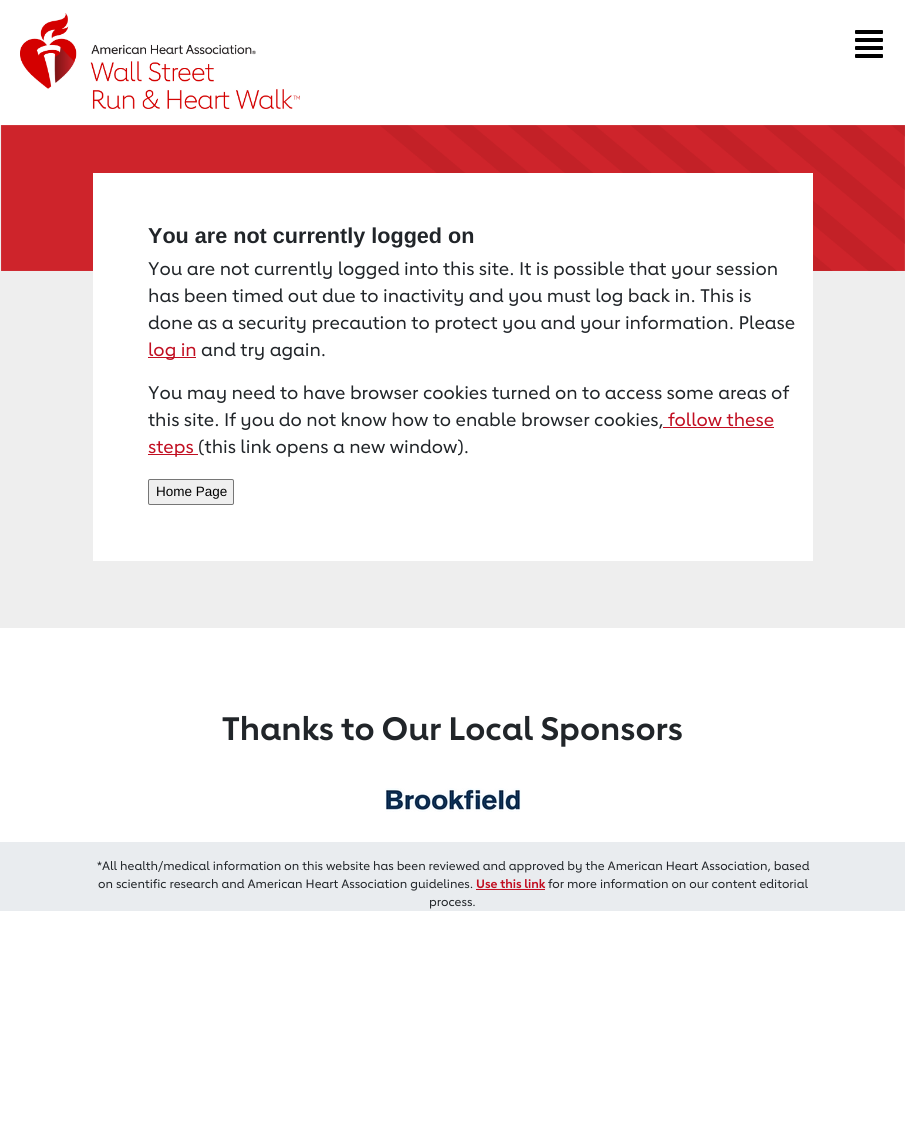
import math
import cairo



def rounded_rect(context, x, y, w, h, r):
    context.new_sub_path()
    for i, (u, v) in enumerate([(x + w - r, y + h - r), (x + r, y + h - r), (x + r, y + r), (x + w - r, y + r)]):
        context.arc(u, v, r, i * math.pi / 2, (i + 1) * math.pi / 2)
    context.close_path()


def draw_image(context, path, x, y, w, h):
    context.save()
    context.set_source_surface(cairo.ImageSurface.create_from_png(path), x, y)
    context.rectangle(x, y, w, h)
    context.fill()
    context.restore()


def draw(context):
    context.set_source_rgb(1, 1, 1)
    context.paint()
    draw_image(context, "images/1.png", 20, 13, 280, 96)
    draw_image(context, "images/2.png", 855, 30, 28, 28)
    context.set_source_rgb(238 / 255, 238 / 255, 238 / 255)
    context.rectangle(0, 125, 905, 503)
    context.fill()
    draw_image(context, "images/3.png", 1, 125, 904, 146)
    context.set_source_rgb(1, 1, 1)
    context.rectangle(93, 173, 720, 388)
    context.fill()
    context.set_source_rgb(193 / 255, 14 / 255, 33 / 255)
    context.rectangle(148, 357, 48, 1)
    context.fill()
    context.rectangle(663, 427, 111, 1)
    context.fill()
    context.rectangle(148, 454, 50, 1)
    context.fill()
    context.set_source_rgb(239 / 255, 239 / 255, 239 / 255)
    rounded_rect(context, 148.5, 479.5, 85, 25, 1.5)
    context.fill_preserve()
    context.set_source_rgb(118 / 255, 118 / 255, 118 / 255)
    context.set_line_width(1)
    context.stroke()
    draw_image(context, "images/4.png", 385, 788, 136, 24)
    context.set_source_rgb(233 / 255, 236 / 255, 239 / 255)
    context.rectangle(0, 842, 905, 69)
    context.fill()
    context.set_source_rgb(193 / 255, 14 / 255, 33 / 255)
    context.rectangle(476, 889, 69, 1)
    context.fill()
    context.select_font_face("Liberation Sans", cairo.FontSlant.NORMAL, cairo.FontWeight.BOLD)
    context.set_font_size(21.6)
    context.set_source_rgb(33 / 255, 37 / 255, 41 / 255)
    context.move_to(148, 243)
    context.show_text("You are not currently logged on")
    context.select_font_face("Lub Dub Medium")
    context.set_font_size(18)
    context.move_to(148, 275)
    context.show_text("You are not currently logged into this site. It is possible that your session")
    context.move_to(148, 302)
    context.show_text("has been timed out due to inactivity and you must log back in. This is")
    context.move_to(148, 329)
    context.show_text("done as a security precaution to protect you and your information. Please")
    context.set_source_rgb(193 / 255, 14 / 255, 33 / 255)
    context.move_to(148, 356)
    context.show_text("log in")
    context.set_source_rgb(33 / 255, 37 / 255, 41 / 255)
    context.move_to(201, 356)
    context.show_text("and try again.")
    context.move_to(148, 399)
    context.show_text("You may need to have browser cookies turned on to access some areas of")
    context.move_to(148, 426)
    context.show_text("this site. If you do not know how to enable browser cookies,")
    context.set_source_rgb(193 / 255, 14 / 255, 33 / 255)
    context.move_to(668, 426)
    context.show_text("follow these")
    context.move_to(148, 453)
    context.show_text("steps")
    context.set_source_rgb(33 / 255, 37 / 255, 41 / 255)
    context.move_to(198, 453)
    context.show_text("(this link opens a new window).")
    context.select_font_face("Liberation Sans")
    context.set_font_size(13.5)
    context.set_source_rgb(0, 0, 0)
    context.move_to(156, 496)
    context.show_text("Home Page")
    context.select_font_face("Lub Dub", cairo.FontSlant.NORMAL, cairo.FontWeight.BOLD)
    context.set_font_size(32)
    context.set_source_rgb(33 / 255, 37 / 255, 41 / 255)
    context.move_to(222, 740)
    context.show_text("Thanks to Our Local Sponsors")
    context.select_font_face("Lub Dub Medium")
    context.set_font_size(11.9)
    context.move_to(97, 870)
    context.show_text("*All health/medical information on this website has been reviewed and approved by the American Heart Association, based")
    context.move_to(98, 888)
    context.show_text("on scientific research and American Heart Association guidelines.")
    context.select_font_face("Lub Dub", cairo.FontSlant.NORMAL, cairo.FontWeight.BOLD)
    context.set_source_rgb(193 / 255, 14 / 255, 33 / 255)
    context.move_to(476, 888)
    context.show_text("Use this link")
    context.select_font_face("Lub Dub Medium")
    context.set_source_rgb(33 / 255, 37 / 255, 41 / 255)
    context.move_to(548, 888)
    context.show_text("for more information on our content editorial")
    context.move_to(429, 906)
    context.show_text("process.")


surface = cairo.ImageSurface(cairo.Format.RGB24, 905, 1121)
context = cairo.Context(surface)
options = cairo.FontOptions()
options.set_hint_metrics(cairo.HintMetrics.OFF)
options.set_hint_style(cairo.HintStyle.NONE)
context.set_font_options(options)
context.set_miter_limit(4)
draw(context)
surface.write_to_png("out.png")
